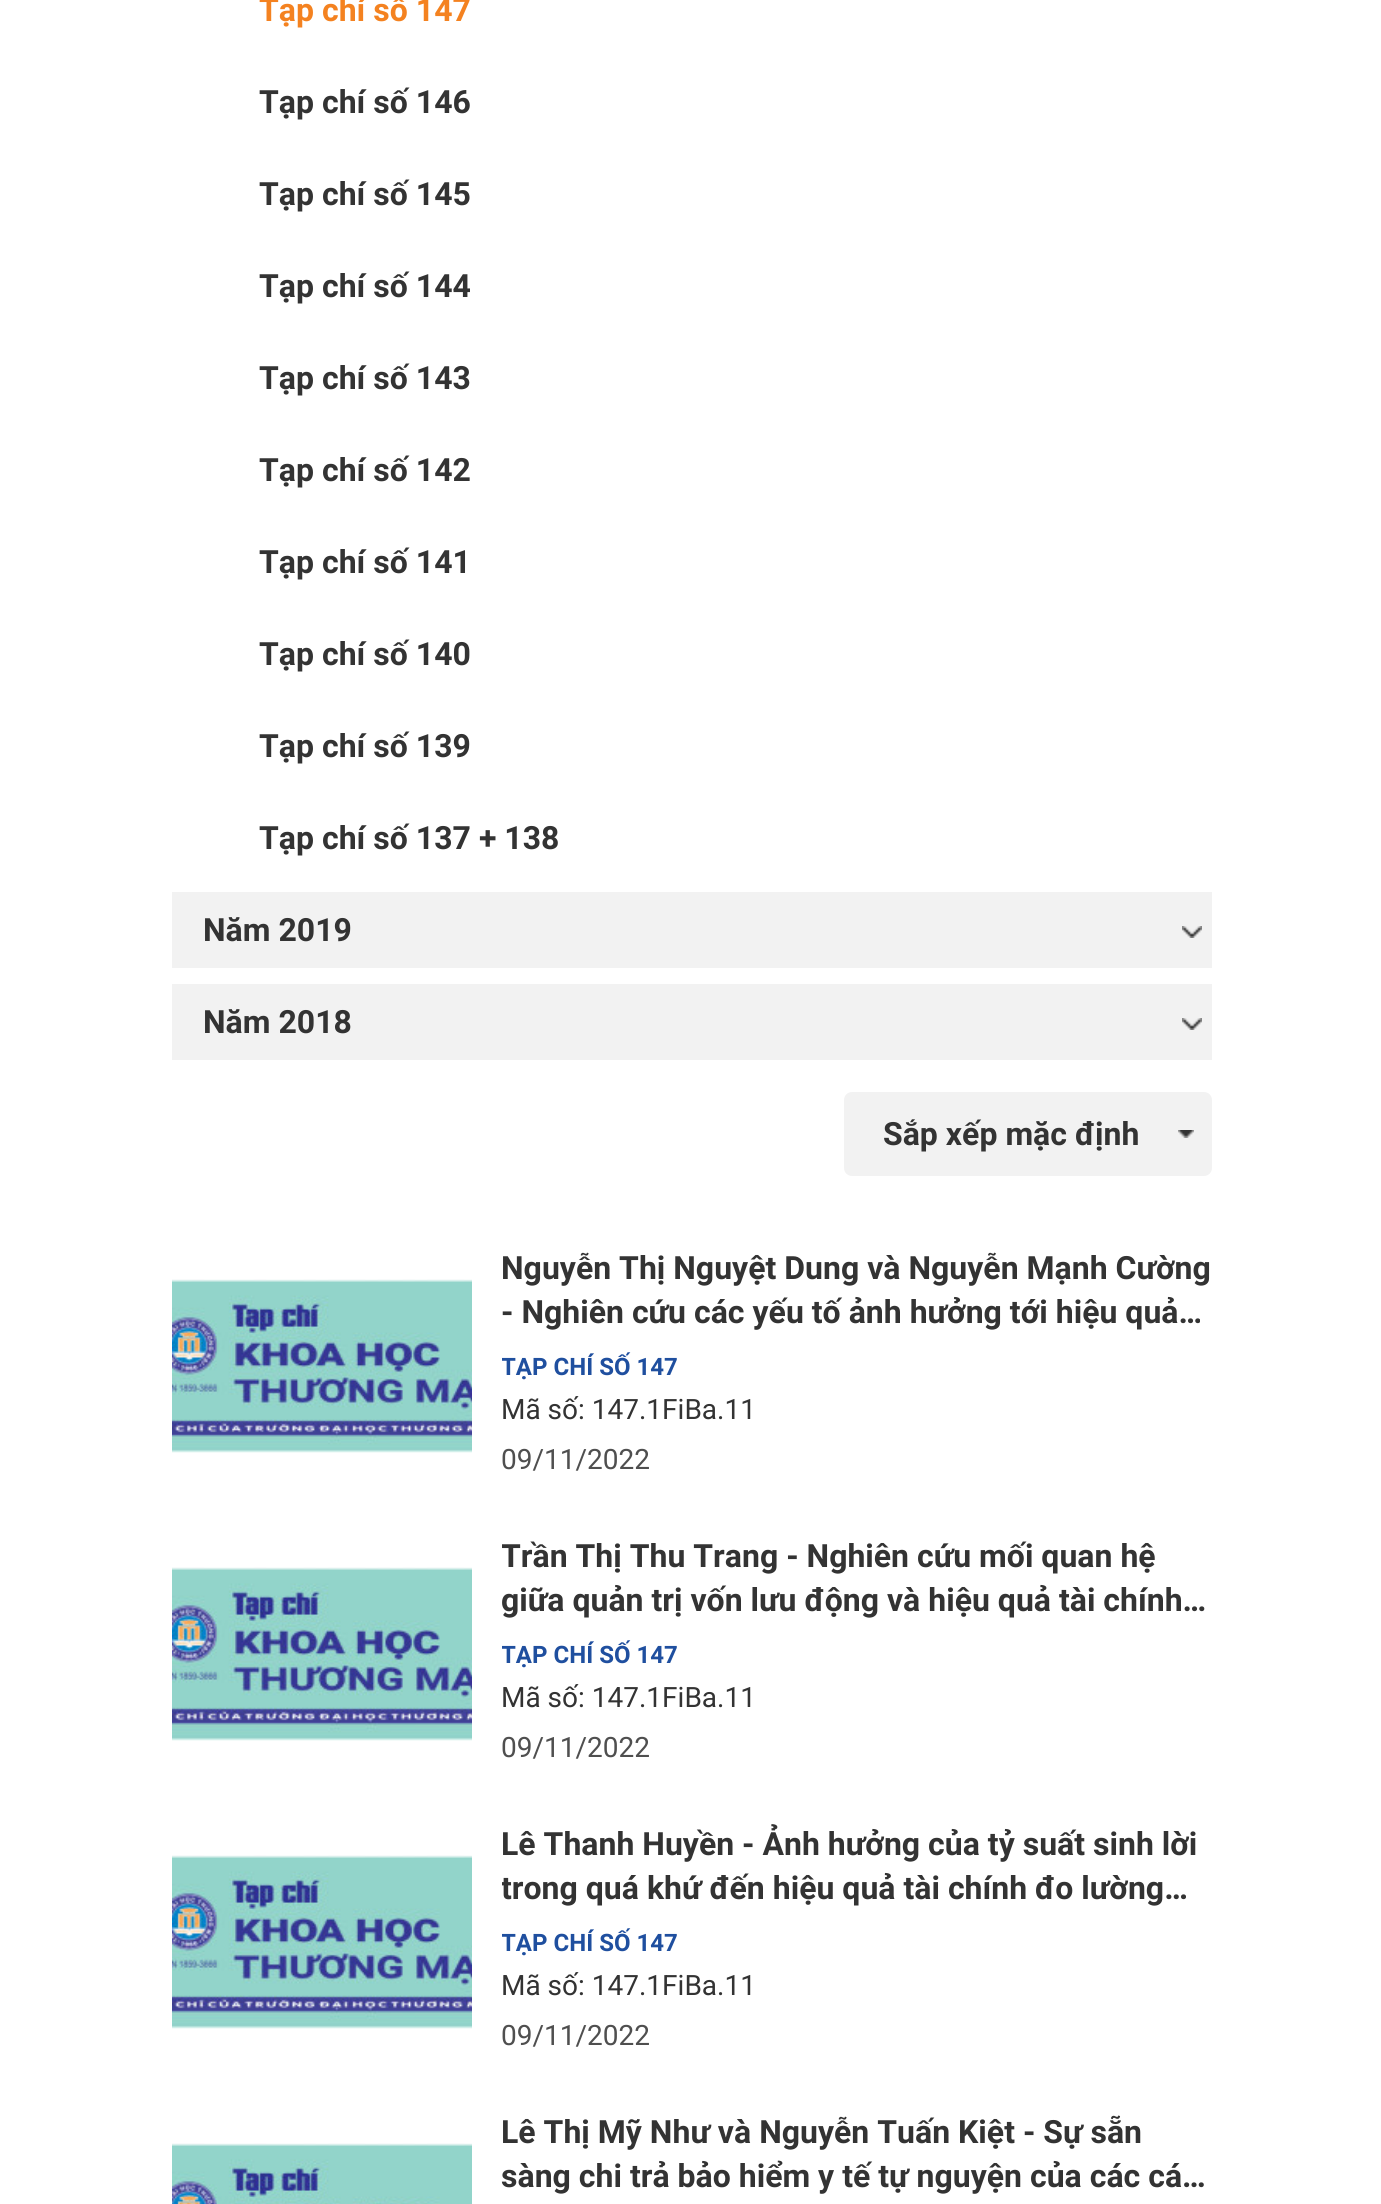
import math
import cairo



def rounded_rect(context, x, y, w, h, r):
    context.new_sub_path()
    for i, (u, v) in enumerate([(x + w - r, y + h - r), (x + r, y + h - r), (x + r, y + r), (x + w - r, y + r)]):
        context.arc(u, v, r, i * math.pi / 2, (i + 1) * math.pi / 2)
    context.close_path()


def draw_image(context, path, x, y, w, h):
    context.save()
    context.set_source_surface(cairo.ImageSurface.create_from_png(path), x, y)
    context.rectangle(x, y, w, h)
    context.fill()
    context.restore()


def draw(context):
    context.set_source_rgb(1, 1, 1)
    context.paint()
    context.set_source_rgb(242 / 255, 242 / 255, 242 / 255)
    context.rectangle(172, 892, 1040, 76)
    context.fill()
    draw_image(context, "images/1.png", 1182, 926, 20, 12)
    context.rectangle(172, 984, 1040, 76)
    context.fill()
    draw_image(context, "images/1.png", 1182, 1018, 20, 12)
    rounded_rect(context, 844, 1092, 368, 84, 8)
    context.fill()
    draw_image(context, "images/2.png", 1178, 1130, 16, 8)
    draw_image(context, "images/3.png", 172, 1279, 300, 174)
    draw_image(context, "images/3.png", 172, 1567, 300, 174)
    draw_image(context, "images/3.png", 172, 1855, 300, 174)
    draw_image(context, "images/4.png", 172, 2143, 300, 61)
    context.select_font_face("Roboto", cairo.FontSlant.NORMAL, cairo.FontWeight.BOLD)
    context.set_font_size(32)
    context.set_source_rgb(244 / 255, 130 / 255, 32 / 255)
    context.move_to(259, 21)
    context.show_text("Tạp chí số 147")
    context.set_source_rgb(51 / 255, 51 / 255, 51 / 255)
    context.move_to(259, 113)
    context.show_text("Tạp chí số 146")
    context.move_to(259, 205)
    context.show_text("Tạp chí số 145")
    context.move_to(259, 297)
    context.show_text("Tạp chí số 144")
    context.move_to(259, 389)
    context.show_text("Tạp chí số 143")
    context.move_to(259, 481)
    context.show_text("Tạp chí số 142")
    context.move_to(259, 573)
    context.show_text("Tạp chí số 141")
    context.move_to(259, 665)
    context.show_text("Tạp chí số 140")
    context.move_to(259, 757)
    context.show_text("Tạp chí số 139")
    context.move_to(259, 849)
    context.show_text("Tạp chí số 137 + 138")
    context.move_to(203, 941)
    context.show_text("Năm 2019")
    context.move_to(203, 1033)
    context.show_text("Năm 2018")
    context.move_to(883, 1145)
    context.show_text("Sắp xếp mặc định")
    context.move_to(501, 1279)
    context.show_text("Nguyễn Thị Nguyệt Dung và Nguyễn Mạnh Cường")
    context.move_to(501, 1323)
    context.show_text("- Nghiên cứu các yếu tố ảnh hưởng tới hiệu quả…")
    context.save()
    context.rectangle(502, 1344, 710, 44)
    context.clip()
    context.set_font_size(24)
    context.set_source_rgb(31 / 255, 79 / 255, 159 / 255)
    context.move_to(501, 1375)
    context.show_text("TẠP CHÍ SỐ 147")
    context.restore()
    context.select_font_face("Roboto")
    context.set_font_size(28)
    context.move_to(501, 1419)
    context.show_text("Mã số: 147.1FiBa.11")
    context.set_source_rgb(79 / 255, 79 / 255, 79 / 255)
    context.move_to(501, 1469)
    context.show_text("09/11/2022")
    context.save()
    context.rectangle(502, 1534, 710, 88)
    context.clip()
    context.select_font_face("Roboto", cairo.FontSlant.NORMAL, cairo.FontWeight.BOLD)
    context.set_font_size(32)
    context.set_source_rgb(51 / 255, 51 / 255, 51 / 255)
    context.move_to(501, 1567)
    context.show_text("Trần Thị Thu Trang - Nghiên cứu mối quan hệ")
    context.restore()
    context.select_font_face("Roboto", cairo.FontSlant.NORMAL, cairo.FontWeight.BOLD)
    context.set_font_size(32)
    context.set_source_rgb(51 / 255, 51 / 255, 51 / 255)
    context.move_to(501, 1611)
    context.show_text("giữa quản trị vốn lưu động và hiệu quả tài chính…")
    context.save()
    context.rectangle(502, 1632, 710, 44)
    context.clip()
    context.set_font_size(24)
    context.set_source_rgb(31 / 255, 79 / 255, 159 / 255)
    context.move_to(501, 1663)
    context.show_text("TẠP CHÍ SỐ 147")
    context.restore()
    context.select_font_face("Roboto")
    context.set_font_size(28)
    context.move_to(501, 1707)
    context.show_text("Mã số: 147.1FiBa.11")
    context.set_source_rgb(79 / 255, 79 / 255, 79 / 255)
    context.move_to(501, 1757)
    context.show_text("09/11/2022")
    context.select_font_face("Roboto", cairo.FontSlant.NORMAL, cairo.FontWeight.BOLD)
    context.set_font_size(32)
    context.set_source_rgb(51 / 255, 51 / 255, 51 / 255)
    context.move_to(501, 1855)
    context.show_text("Lê Thanh Huyền - Ảnh hưởng của tỷ suất sinh lời")
    context.save()
    context.rectangle(502, 1822, 710, 88)
    context.clip()
    context.move_to(501, 1899)
    context.show_text("trong quá khứ đến hiệu quả tài chính đo lường…")
    context.restore()
    context.save()
    context.rectangle(502, 1920, 710, 44)
    context.clip()
    context.set_font_size(24)
    context.set_source_rgb(31 / 255, 79 / 255, 159 / 255)
    context.move_to(501, 1951)
    context.show_text("TẠP CHÍ SỐ 147")
    context.restore()
    context.select_font_face("Roboto")
    context.set_font_size(28)
    context.move_to(501, 1995)
    context.show_text("Mã số: 147.1FiBa.11")
    context.set_source_rgb(79 / 255, 79 / 255, 79 / 255)
    context.move_to(501, 2045)
    context.show_text("09/11/2022")
    context.select_font_face("Roboto", cairo.FontSlant.NORMAL, cairo.FontWeight.BOLD)
    context.set_font_size(32)
    context.set_source_rgb(51 / 255, 51 / 255, 51 / 255)
    context.move_to(501, 2143)
    context.show_text("Lê Thị Mỹ Như và Nguyễn Tuấn Kiệt - Sự sẵn")
    context.move_to(501, 2187)
    context.show_text("sàng chi trả bảo hiểm y tế tự nguyện của các cá…")


surface = cairo.ImageSurface(cairo.Format.RGB24, 1381, 2204)
context = cairo.Context(surface)
options = cairo.FontOptions()
options.set_hint_metrics(cairo.HintMetrics.OFF)
options.set_hint_style(cairo.HintStyle.NONE)
context.set_font_options(options)
context.set_miter_limit(4)
draw(context)
surface.write_to_png("out.png")
